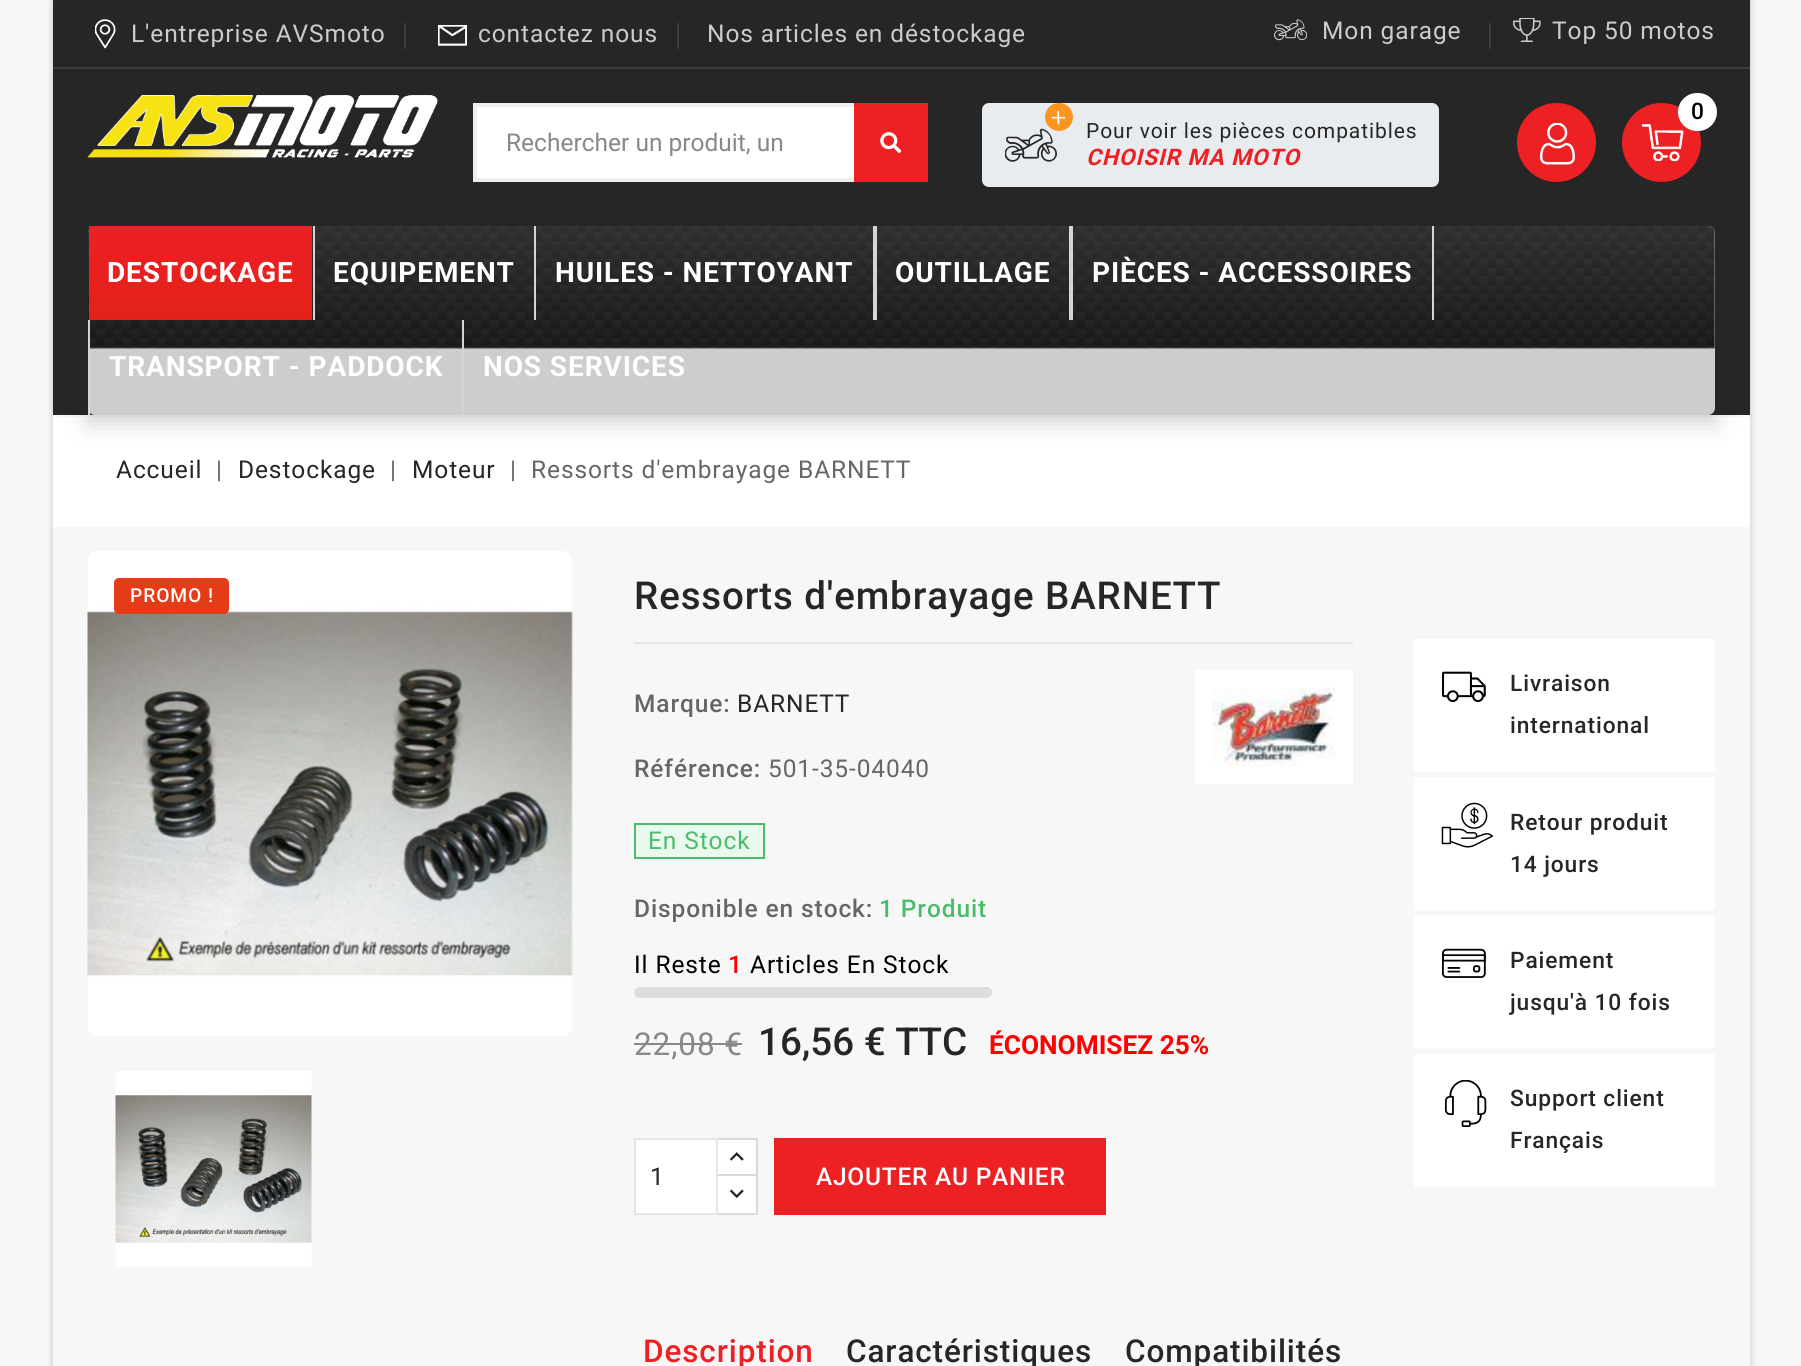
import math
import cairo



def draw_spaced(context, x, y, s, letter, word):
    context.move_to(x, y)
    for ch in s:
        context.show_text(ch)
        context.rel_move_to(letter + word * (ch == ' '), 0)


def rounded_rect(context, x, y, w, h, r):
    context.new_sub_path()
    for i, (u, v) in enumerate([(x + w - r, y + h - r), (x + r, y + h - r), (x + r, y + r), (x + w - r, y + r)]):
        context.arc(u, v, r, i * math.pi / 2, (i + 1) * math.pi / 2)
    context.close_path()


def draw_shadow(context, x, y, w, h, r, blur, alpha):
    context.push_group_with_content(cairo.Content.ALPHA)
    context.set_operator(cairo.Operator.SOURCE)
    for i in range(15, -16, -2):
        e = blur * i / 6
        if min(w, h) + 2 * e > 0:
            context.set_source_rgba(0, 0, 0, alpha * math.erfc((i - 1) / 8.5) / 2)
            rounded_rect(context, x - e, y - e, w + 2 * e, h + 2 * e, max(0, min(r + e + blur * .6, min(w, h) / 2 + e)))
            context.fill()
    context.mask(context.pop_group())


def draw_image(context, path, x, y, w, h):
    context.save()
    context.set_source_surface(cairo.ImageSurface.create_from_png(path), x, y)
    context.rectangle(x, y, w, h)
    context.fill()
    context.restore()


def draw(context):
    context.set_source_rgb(247 / 255, 247 / 255, 247 / 255)
    context.paint()
    context.save()
    context.set_fill_rule(cairo.FillRule.EVEN_ODD)
    context.new_path()
    context.move_to(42, 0)
    context.line_to(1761, 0)
    context.line_to(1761, 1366)
    context.line_to(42, 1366)
    context.close_path()
    context.move_to(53, 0)
    context.line_to(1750, 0)
    context.line_to(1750, 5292)
    context.line_to(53, 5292)
    context.close_path()
    context.clip()
    context.set_source_rgb(128 / 255, 128 / 255, 128 / 255)
    draw_shadow(context, 51, 0, 1701, 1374, 0, 2.5, 0.27)
    context.restore()
    context.set_source_rgb(38 / 255, 38 / 255, 38 / 255)
    context.rectangle(53, 0, 1697, 415)
    context.fill()
    context.set_source_rgb(60 / 255, 60 / 255, 60 / 255)
    context.rectangle(53, 67, 1697, 2)
    context.fill()
    draw_image(context, "images/1.png", 95, 19, 21, 30)
    context.rectangle(404, 23, 2, 26)
    context.fill()
    draw_image(context, "images/2.png", 438, 25, 29, 21)
    context.rectangle(677, 23, 2, 26)
    context.fill()
    draw_image(context, "images/3.png", 1274, 19, 33, 22)
    context.rectangle(1489, 23, 2, 26)
    context.fill()
    draw_image(context, "images/4.png", 1513, 18, 28, 24)
    draw_image(context, "images/5.png", 87, 95, 351, 63)
    context.set_source_rgb(1, 1, 1)
    context.rectangle(477, 107, 377, 71)
    context.fill()
    context.rectangle(475, 105, 451, 75)
    context.set_source_rgb(238 / 255, 238 / 255, 238 / 255)
    context.set_line_width(4)
    context.stroke()
    context.set_source_rgb(237 / 255, 32 / 255, 36 / 255)
    context.rectangle(854, 103, 74, 79)
    context.fill()
    draw_image(context, "images/6.png", 880, 132, 22, 22)
    context.set_source_rgb(233 / 255, 236 / 255, 239 / 255)
    rounded_rect(context, 983, 104, 455, 82, 6)
    context.fill_preserve()
    context.set_line_width(2)
    context.stroke()
    draw_image(context, "images/8.png", 1005, 128, 52, 34)
    draw_image(context, "images/7.png", 1045, 103, 28, 28)
    context.set_source_rgb(237 / 255, 32 / 255, 36 / 255)
    context.arc(1556.5, 142.5, 39.5, 0, 2 * math.pi)
    context.fill()
    draw_image(context, "images/9.png", 1539, 123, 36, 42)
    context.arc(1661.5, 142.5, 39.5, 0, 2 * math.pi)
    context.fill()
    draw_image(context, "images/10.png", 1642, 124, 42, 37)
    context.set_source_rgb(1, 1, 1)
    rounded_rect(context, 1678, 93, 39, 38, 19)
    context.fill()
    context.rectangle(53, 417, 1697, 110)
    context.fill()
    context.set_source_rgb(38 / 255, 38 / 255, 38 / 255)
    draw_shadow(context, 88, 235, 1627, 189, 0, 11.5, 0.2)
    context.set_source_rgb(205 / 255, 205 / 255, 205 / 255)
    rounded_rect(context, 88, 226, 1627, 189, 7)
    context.fill()
    draw_image(context, "images/11.png", 88, 226, 1627, 123)
    gradient = cairo.LinearGradient(200, 226, 200, 320)
    gradient.add_color_stop_rgba(0, 237 / 255, 32 / 255, 36 / 255, 1)
    gradient.add_color_stop_rgba(1, 227 / 255, 33 / 255, 25 / 255, 1)
    context.set_source(gradient)
    context.rectangle(89, 226, 223, 94)
    context.fill()
    context.set_source_rgb(214 / 255, 212 / 255, 212 / 255)
    context.rectangle(534, 226, 2, 94)
    context.fill()
    context.rectangle(313, 226, 2, 94)
    context.fill()
    context.rectangle(873, 226, 4, 94)
    context.fill()
    context.rectangle(1069, 226, 4, 94)
    context.fill()
    context.rectangle(1432, 226, 2, 94)
    context.fill()
    context.rectangle(462, 320, 2, 95)
    context.fill()
    context.rectangle(88, 320, 2, 95)
    context.fill()
    context.set_source_rgb(1, 1, 1)
    rounded_rect(context, 88, 551, 484, 485, 9)
    context.fill()
    draw_image(context, "images/12.png", 87, 561, 486, 473)
    draw_image(context, "images/13.png", 115, 1071, 197, 196)
    context.set_source_rgb(228 / 255, 60 / 255, 22 / 255)
    rounded_rect(context, 114, 578, 115, 36, 5)
    context.fill()
    context.set_source_rgb(229 / 255, 229 / 255, 229 / 255)
    context.rectangle(634, 642, 719, 2)
    context.fill()
    context.set_source_rgb(1, 1, 1)
    context.rectangle(1195, 670, 158, 114)
    context.fill()
    draw_image(context, "images/14.png", 1212, 687, 124, 80)
    context.set_source_rgb(233 / 255, 249 / 255, 238 / 255)
    context.rectangle(635, 824, 129, 34)
    context.fill_preserve()
    context.set_source_rgb(76 / 255, 187 / 255, 108 / 255)
    context.stroke()
    context.set_source_rgb(221 / 255, 221 / 255, 221 / 255)
    rounded_rect(context, 634, 987, 358, 11, 5.5)
    context.fill()
    context.set_source_rgb(136 / 255, 136 / 255, 136 / 255)
    context.rectangle(634, 1043, 108, 2)
    context.fill()
    context.set_source_rgb(1, 1, 1)
    context.rectangle(718, 1140, 38, 34)
    context.fill()
    context.rectangle(717, 1139, 40, 38)
    context.set_source_rgb(217 / 255, 217 / 255, 217 / 255)
    context.stroke()
    context.set_source_rgb(1, 1, 1)
    context.rectangle(717, 1175, 40, 39)
    context.fill_preserve()
    context.set_source_rgb(217 / 255, 217 / 255, 217 / 255)
    context.stroke()
    context.set_source_rgb(1, 1, 1)
    context.rectangle(635, 1139, 82, 75)
    context.fill_preserve()
    context.set_source_rgb(229 / 255, 229 / 255, 229 / 255)
    context.stroke()
    draw_image(context, "images/15.png", 729, 1152, 15, 9)
    draw_image(context, "images/16.png", 729, 1189, 15, 9)
    context.set_source_rgb(237 / 255, 32 / 255, 36 / 255)
    context.rectangle(774, 1138, 332, 77)
    context.fill()
    context.set_source_rgb(1, 1, 1)
    context.rectangle(1414, 639, 301, 133)
    context.fill()
    draw_image(context, "images/17.png", 1442, 671, 44, 32)
    context.rectangle(1414, 777, 301, 133)
    context.fill()
    draw_image(context, "images/18.png", 1441, 802, 52, 46)
    context.rectangle(1414, 915, 301, 133)
    context.fill()
    draw_image(context, "images/19.png", 1442, 948, 44, 30)
    context.rectangle(1414, 1054, 301, 133)
    context.fill()
    draw_image(context, "images/20.png", 1444, 1080, 43, 47)
    context.select_font_face("Roboto")
    context.set_font_size(24.5)
    context.set_source_rgb(204 / 255, 204 / 255, 204 / 255)
    draw_spaced(context, 131, 42, "L'entreprise AVSmoto", 0.9, 0)
    draw_spaced(context, 478, 42, "contactez nous", 0.9, 0)
    draw_spaced(context, 707, 42, "Nos articles en déstockage", 0.9, 0)
    draw_spaced(context, 1322, 39, "Mon garage", 0.9, 0)
    draw_spaced(context, 1552, 39, "Top 50 motos", 0.9, 0)
    context.set_source_rgb(136 / 255, 136 / 255, 136 / 255)
    context.move_to(506, 151)
    context.show_text("Rechercher un produit, un")
    context.set_font_size(21)
    context.set_source_rgb(38 / 255, 38 / 255, 38 / 255)
    draw_spaced(context, 1086, 138, "Pour voir les pièces compatibles", 0.9, 0)
    context.select_font_face("Roboto", cairo.FontSlant.ITALIC, cairo.FontWeight.BOLD)
    context.set_font_size(22.75)
    context.set_source_rgb(237 / 255, 32 / 255, 36 / 255)
    draw_spaced(context, 1086, 165, "CHOISIR MA MOTO", 0.9, 0)
    context.select_font_face("Roboto Medium")
    context.set_source_rgb(0, 0, 0)
    draw_spaced(context, 1691, 119, "0", 0.9, 0)
    context.select_font_face("Roboto", cairo.FontSlant.NORMAL, cairo.FontWeight.BOLD)
    context.set_font_size(28)
    context.set_source_rgb(1, 1, 1)
    draw_spaced(context, 107, 282, "DESTOCKAGE", 0.9, 0)
    draw_spaced(context, 333, 282, "EQUIPEMENT", 0.9, 0)
    draw_spaced(context, 555, 282, "HUILES - NETTOYANT", 0.9, 0)
    draw_spaced(context, 895, 282, "OUTILLAGE", 0.9, 0)
    draw_spaced(context, 1092, 282, "PIÈCES - ACCESSOIRES", 0.9, 0)
    draw_spaced(context, 109, 376, "TRANSPORT - PADDOCK", 0.9, 0)
    draw_spaced(context, 483, 376, "NOS SERVICES", 0.9, 0)
    context.select_font_face("Roboto")
    context.set_font_size(24.5)
    context.set_source_rgb(38 / 255, 38 / 255, 38 / 255)
    draw_spaced(context, 116, 478, "Accueil", 0.9, 0)
    context.set_source_rgb(102 / 255, 102 / 255, 102 / 255)
    draw_spaced(context, 216, 478, "|", 0.9, 0)
    context.set_source_rgb(38 / 255, 38 / 255, 38 / 255)
    draw_spaced(context, 238, 478, "Destockage", 0.9, 0)
    context.set_source_rgb(102 / 255, 102 / 255, 102 / 255)
    draw_spaced(context, 390, 478, "|", 0.9, 0)
    context.set_source_rgb(38 / 255, 38 / 255, 38 / 255)
    draw_spaced(context, 412, 478, "Moteur", 0.9, 0)
    context.set_source_rgb(102 / 255, 102 / 255, 102 / 255)
    draw_spaced(context, 510, 478, "|", 0.9, 0)
    draw_spaced(context, 531, 478, "Ressorts d'embrayage BARNETT", 0.9, 0)
    context.select_font_face("Roboto Medium")
    context.set_font_size(19.25)
    context.set_source_rgb(1, 1, 1)
    draw_spaced(context, 130, 602, "PROMO !", 0.9, 0)
    context.set_font_size(38.5)
    context.set_source_rgb(38 / 255, 38 / 255, 38 / 255)
    draw_spaced(context, 634, 609, "Ressorts d'embrayage BARNETT", 0.9, 0)
    context.set_font_size(24.5)
    context.set_source_rgb(102 / 255, 102 / 255, 102 / 255)
    draw_spaced(context, 634, 712, "Marque:", 0.9, 0)
    context.select_font_face("Roboto")
    context.set_source_rgb(38 / 255, 38 / 255, 38 / 255)
    draw_spaced(context, 737, 712, "BARNETT", 0.9, 0)
    context.select_font_face("Roboto Medium")
    context.set_source_rgb(102 / 255, 102 / 255, 102 / 255)
    draw_spaced(context, 634, 777, "Référence:", 0.9, 0)
    context.select_font_face("Roboto")
    draw_spaced(context, 768, 777, "501-35-04040", 0.9, 0)
    context.set_source_rgb(76 / 255, 187 / 255, 108 / 255)
    draw_spaced(context, 648, 849, "En Stock", 0.9, 0)
    context.select_font_face("Roboto Medium")
    context.set_source_rgb(102 / 255, 102 / 255, 102 / 255)
    draw_spaced(context, 634, 917, "Disponible en stock:", 0.9, 0)
    context.set_source_rgb(76 / 255, 187 / 255, 108 / 255)
    draw_spaced(context, 879, 917, "1 Produit", 0.9, 0)
    context.select_font_face("Roboto")
    context.set_source_rgb(0, 0, 0)
    draw_spaced(context, 634, 973, "Il Reste", 0.9, 0)
    context.select_font_face("Roboto Medium")
    context.set_source_rgb(1, 0, 0)
    draw_spaced(context, 728, 973, "1", 0.9, 0)
    context.select_font_face("Roboto")
    context.set_source_rgb(0, 0, 0)
    draw_spaced(context, 750, 973, "Articles En Stock", 0.9, 0)
    context.set_font_size(31.5)
    context.set_source_rgb(136 / 255, 136 / 255, 136 / 255)
    draw_spaced(context, 634, 1055, "22,08 €", 0.9, 0)
    context.select_font_face("Roboto Medium")
    context.set_font_size(38.5)
    context.set_source_rgb(38 / 255, 38 / 255, 38 / 255)
    context.move_to(758, 1055)
    context.show_text("16,56 € TTC")
    context.select_font_face("Roboto", cairo.FontSlant.NORMAL, cairo.FontWeight.BOLD)
    context.set_font_size(26.25)
    context.set_source_rgb(1, 0, 0)
    context.move_to(989, 1054)
    context.show_text("ÉCONOMISEZ 25%")
    context.select_font_face("Roboto")
    context.set_font_size(24.5)
    context.set_source_rgb(38 / 255, 38 / 255, 38 / 255)
    context.move_to(650, 1185)
    context.show_text("1")
    context.select_font_face("Roboto Medium")
    context.set_source_rgb(1, 1, 1)
    draw_spaced(context, 816, 1185, "AJOUTER AU PANIER", 0.75, 0)
    context.set_font_size(22.75)
    context.set_source_rgb(38 / 255, 38 / 255, 38 / 255)
    draw_spaced(context, 1510, 691, "Livraison", 0.9, 0)
    draw_spaced(context, 1510, 733, "international", 0.9, 0)
    draw_spaced(context, 1510, 830, "Retour produit", 0.9, 0)
    draw_spaced(context, 1510, 872, "14 jours", 0.9, 0)
    draw_spaced(context, 1510, 968, "Paiement", 0.9, 0)
    draw_spaced(context, 1510, 1010, "jusqu'à 10 fois", 0.9, 0)
    draw_spaced(context, 1510, 1106, "Support client", 0.9, 0)
    draw_spaced(context, 1510, 1148, "Français", 0.9, 0)
    context.set_font_size(31.5)
    context.set_source_rgb(237 / 255, 32 / 255, 36 / 255)
    draw_spaced(context, 643, 1362, "Description", 0.9, 0)
    context.set_source_rgb(38 / 255, 38 / 255, 38 / 255)
    draw_spaced(context, 846, 1362, "Caractéristiques", 0.9, 0)
    draw_spaced(context, 1125, 1362, "Compatibilités", 0.9, 0)


surface = cairo.ImageSurface(cairo.Format.RGB24, 1801, 1366)
context = cairo.Context(surface)
options = cairo.FontOptions()
options.set_hint_metrics(cairo.HintMetrics.OFF)
options.set_hint_style(cairo.HintStyle.NONE)
context.set_font_options(options)
context.set_miter_limit(4)
draw(context)
surface.write_to_png("out.png")
